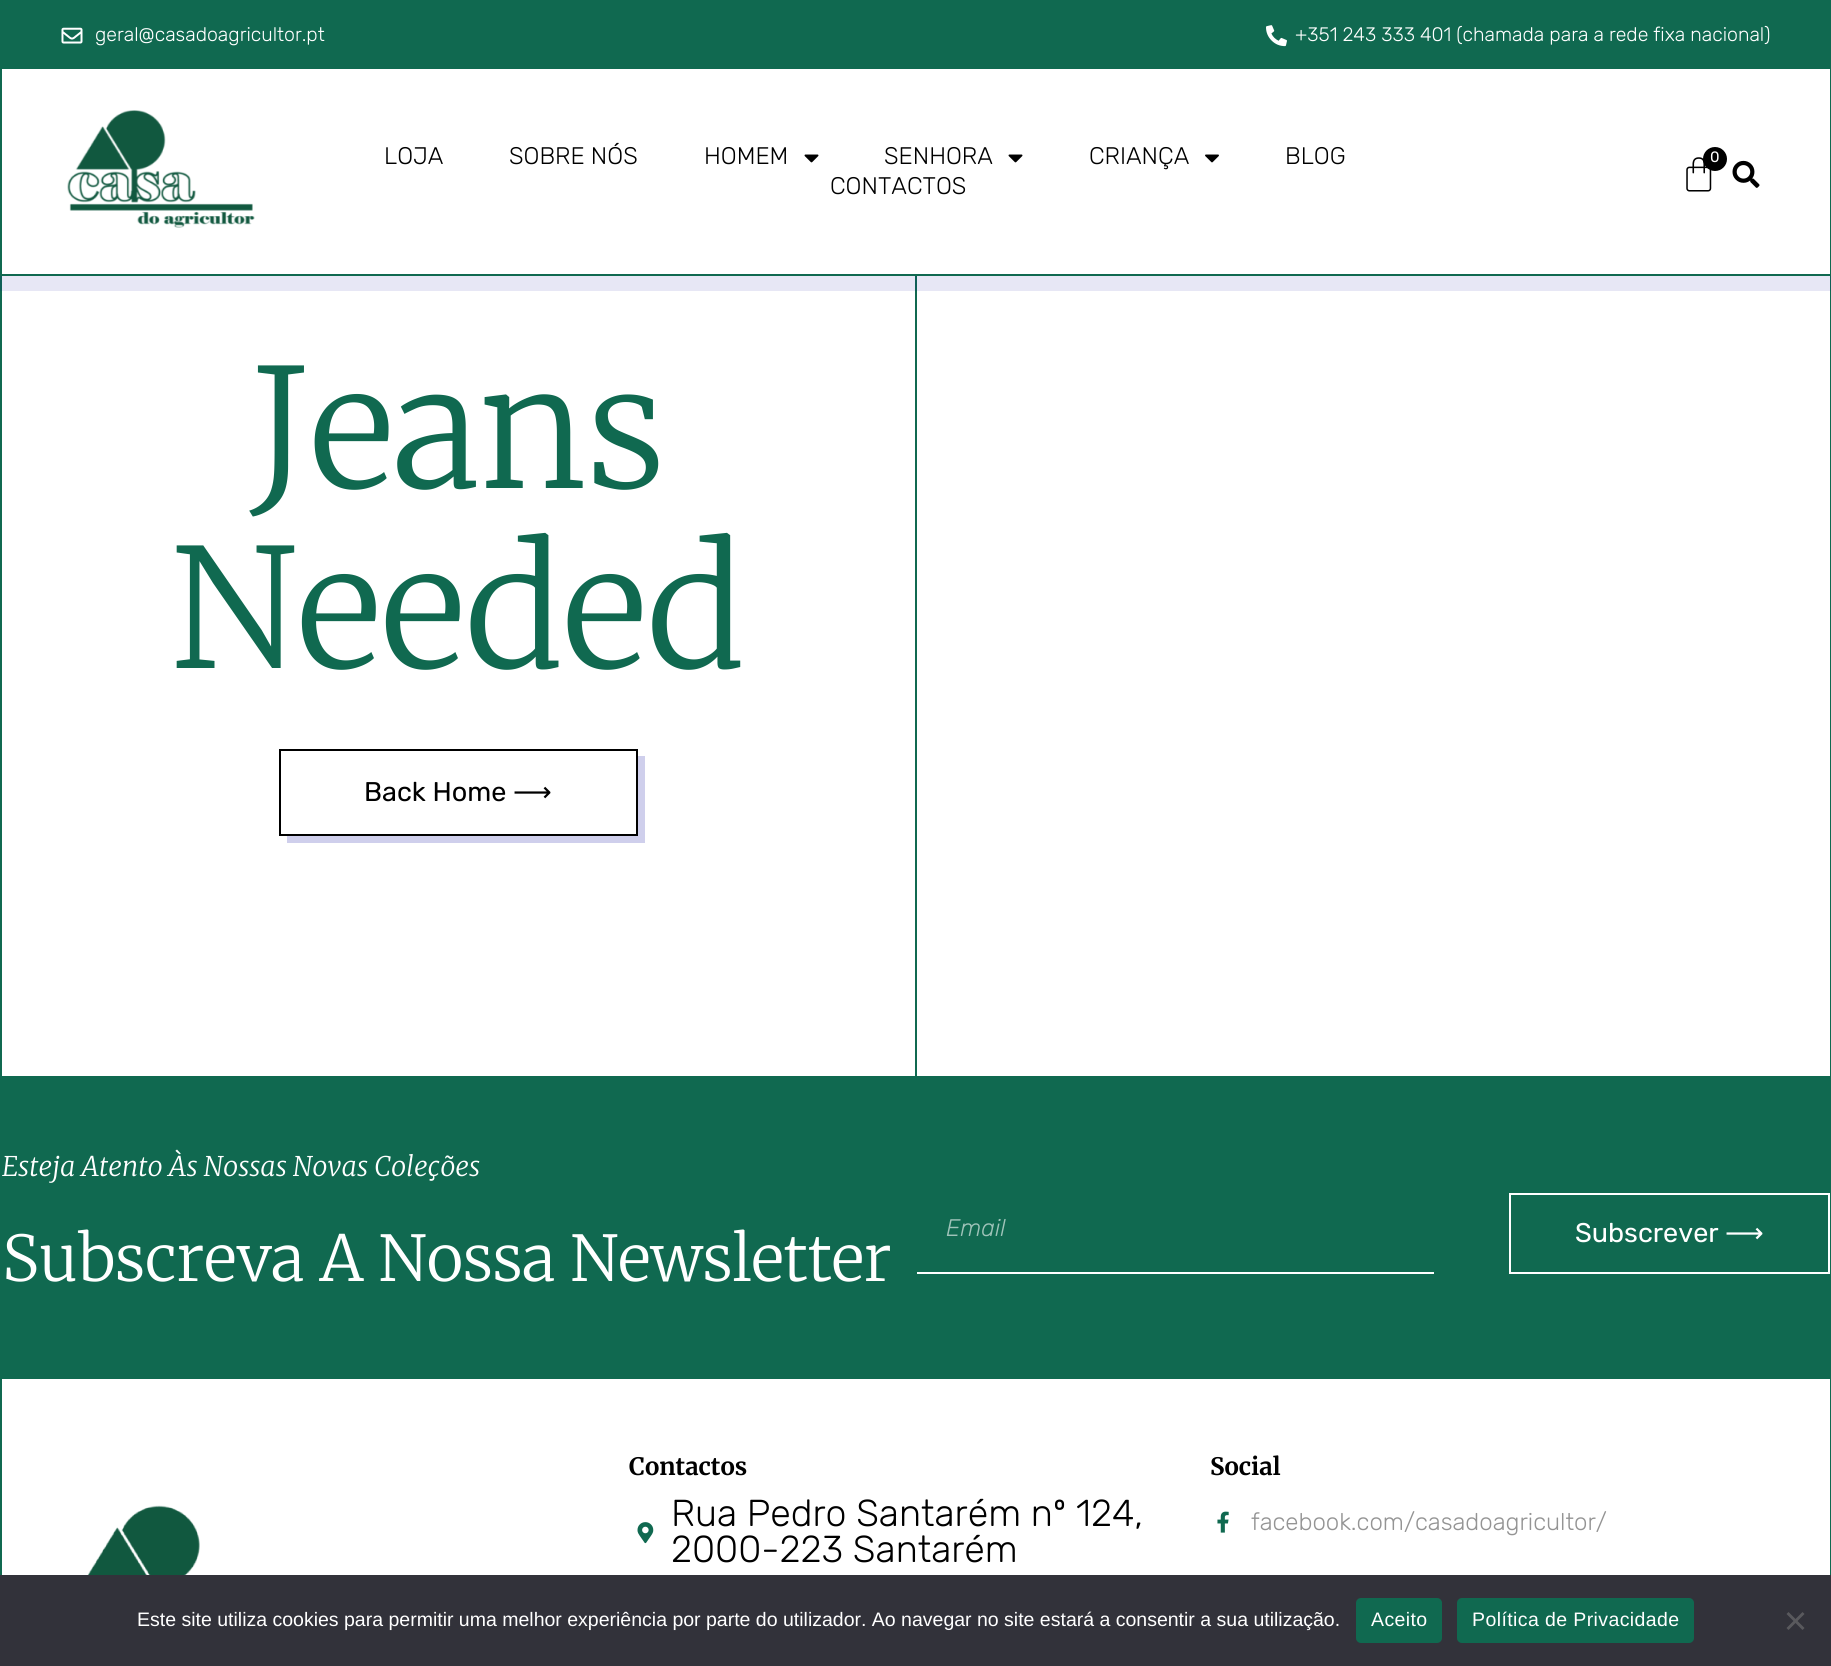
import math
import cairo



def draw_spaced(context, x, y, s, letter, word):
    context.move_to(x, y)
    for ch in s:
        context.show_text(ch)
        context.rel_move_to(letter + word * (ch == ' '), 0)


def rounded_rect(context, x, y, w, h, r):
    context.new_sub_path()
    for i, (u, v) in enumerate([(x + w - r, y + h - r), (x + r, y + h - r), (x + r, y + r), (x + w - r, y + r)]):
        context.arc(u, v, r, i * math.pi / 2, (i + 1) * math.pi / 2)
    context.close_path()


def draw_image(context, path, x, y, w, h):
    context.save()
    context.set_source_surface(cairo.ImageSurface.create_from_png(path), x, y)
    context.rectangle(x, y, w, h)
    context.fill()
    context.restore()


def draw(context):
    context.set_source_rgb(1, 1, 1)
    context.paint()
    context.set_source_rgb(16 / 255, 105 / 255, 80 / 255)
    context.rectangle(1830, 276, 1, 801)
    context.fill()
    context.rectangle(0, 1076, 1831, 1)
    context.fill()
    context.rectangle(0, 276, 2, 801)
    context.fill()
    context.rectangle(915, 276, 2, 800)
    context.fill()
    context.set_source_rgba(15 / 255, 13 / 255, 159 / 255, 0.1)
    context.new_path()
    context.move_to(0, 276)
    context.line_to(0, 291)
    context.line_to(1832, 291)
    context.line_to(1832, 15)
    context.line_to(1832, 276)
    context.close_path()
    context.fill()
    context.rectangle(1, 1, 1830, 274)
    context.set_source_rgb(16 / 255, 105 / 255, 80 / 255)
    context.stroke()
    context.rectangle(2, 2, 1828, 67)
    context.fill()
    draw_image(context, "images/1.png", 61, 27, 22, 17)
    draw_image(context, "images/2.png", 1266, 25, 21, 22)
    draw_image(context, "images/3.png", 67, 110, 188, 118)
    draw_image(context, "images/4.png", 804, 154, 15, 9)
    draw_image(context, "images/4.png", 1008, 154, 15, 9)
    draw_image(context, "images/5.png", 1205, 154, 14, 9)
    draw_image(context, "images/6.png", 1686, 157, 26, 35)
    context.set_source_rgb(0, 0, 0)
    context.arc(1715, 159, 12, 0, 2 * math.pi)
    context.fill()
    draw_image(context, "images/7.png", 1732, 160, 28, 28)
    context.set_source_rgb(207 / 255, 207 / 255, 236 / 255)
    context.new_path()
    context.move_to(287, 836)
    context.line_to(287, 843)
    context.line_to(645, 843)
    context.line_to(645, 756)
    context.line_to(638, 756)
    context.line_to(638, 836)
    context.close_path()
    context.fill()
    context.rectangle(280, 750, 357, 85)
    context.set_source_rgb(0, 0, 0)
    context.stroke()
    context.rectangle(1, 1078, 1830, 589)
    context.set_source_rgb(16 / 255, 105 / 255, 80 / 255)
    context.stroke()
    context.rectangle(2, 1079, 1828, 300)
    context.fill()
    context.set_source_rgb(1, 1, 1)
    context.rectangle(917, 1272, 517, 2)
    context.fill()
    context.rectangle(1510, 1194, 319, 79)
    context.stroke()
    draw_image(context, "images/8.png", 87, 1505, 113, 70)
    draw_image(context, "images/9.png", 637, 1522, 17, 22)
    draw_image(context, "images/10.png", 1217, 1511, 12, 22)
    context.set_source_rgb(50 / 255, 50 / 255, 58 / 255)
    context.rectangle(0, 1575, 1831, 91)
    context.fill()
    context.set_source_rgb(16 / 255, 105 / 255, 80 / 255)
    rounded_rect(context, 1356, 1598, 86, 45, 5)
    context.fill()
    rounded_rect(context, 1457, 1598, 237, 45, 5)
    context.fill()
    context.set_source_rgb(89 / 255, 89 / 255, 93 / 255)
    context.new_path()
    context.move_to(1802.5, 1612)
    context.line_to(1804.5, 1614)
    context.line_to(1788.5, 1630)
    context.line_to(1786.5, 1628)
    context.close_path()
    context.fill()
    context.new_path()
    context.move_to(1786.5, 1614)
    context.line_to(1788.5, 1612)
    context.line_to(1804.5, 1628)
    context.line_to(1802.5, 1630)
    context.close_path()
    context.fill()
    context.select_font_face("Rubik Light")
    context.set_font_size(19.5)
    context.set_source_rgb(1, 1, 1)
    context.move_to(95, 41)
    context.show_text("geral@casadoagricultor.pt")
    context.move_to(1295, 41)
    context.show_text("+351 243 333 401 (chamada para a rede fixa nacional)")
    context.set_font_size(24)
    context.set_source_rgb(0, 0, 0)
    context.move_to(384, 164)
    context.show_text("LOJA")
    context.move_to(509, 164)
    context.show_text("SOBRE NÓS")
    context.move_to(704, 164)
    context.show_text("HOMEM")
    context.move_to(884, 164)
    context.show_text("SENHORA")
    context.move_to(1089, 164)
    context.show_text("CRIANÇA")
    context.move_to(1285, 164)
    context.show_text("BLOG")
    context.move_to(830, 194)
    context.show_text("CONTACTOS")
    context.select_font_face("Rubik")
    context.set_font_size(15)
    context.set_source_rgb(1, 1, 1)
    context.move_to(1710, 162)
    context.show_text("0")
    context.select_font_face("Merriweather Light")
    context.set_font_size(165)
    context.set_source_rgb(16 / 255, 105 / 255, 80 / 255)
    context.move_to(251, 488)
    context.show_text("Jeans")
    context.move_to(171, 668)
    context.show_text("Needed")
    context.select_font_face("Rubik")
    context.set_font_size(27)
    context.set_source_rgb(0, 0, 0)
    context.move_to(364, 801)
    context.show_text("Back Home")
    context.select_font_face("DejaVu Sans")
    context.move_to(513, 801)
    context.show_text("⟶")
    context.select_font_face("Merriweather Light", cairo.FontSlant.ITALIC)
    context.set_source_rgb(1, 1, 1)
    context.move_to(2, 1176)
    context.show_text("Esteja Atento Às Nossas Novas Coleções")
    context.select_font_face("Merriweather Light")
    context.set_font_size(63)
    context.move_to(2, 1281)
    context.show_text("Subscreva A Nossa Newsletter")
    context.select_font_face("Rubik Light", cairo.FontSlant.ITALIC)
    context.set_font_size(24)
    context.set_source_rgb(159 / 255, 195 / 255, 185 / 255)
    context.move_to(946, 1236)
    context.show_text("Email")
    context.select_font_face("Rubik")
    context.set_font_size(27)
    context.set_source_rgb(1, 1, 1)
    context.move_to(1575, 1242)
    context.show_text("Subscrever")
    context.select_font_face("DejaVu Sans")
    context.move_to(1725, 1242)
    context.show_text("⟶")
    context.select_font_face("Merriweather", cairo.FontSlant.NORMAL, cairo.FontWeight.BOLD)
    context.set_font_size(24)
    context.set_source_rgb(0, 0, 0)
    context.move_to(629, 1475)
    context.show_text("Contactos")
    context.select_font_face("Rubik Light")
    context.set_font_size(37.5)
    context.move_to(671, 1526)
    context.show_text("Rua Pedro Santarém nº 124,")
    context.move_to(671, 1562)
    context.show_text("2000-223 Santarém")
    context.select_font_face("Merriweather", cairo.FontSlant.NORMAL, cairo.FontWeight.BOLD)
    context.set_font_size(24)
    context.move_to(1210, 1475)
    context.show_text("Social")
    context.select_font_face("Rubik Light")
    context.set_source_rgb(148 / 255, 148 / 255, 148 / 255)
    context.move_to(1251, 1530)
    context.show_text("facebook.com/casadoagricultor/")
    context.select_font_face("Liberation Sans")
    context.set_font_size(19.5)
    context.set_source_rgb(1, 1, 1)
    context.move_to(137, 1626)
    context.show_text("Este site utiliza cookies para permitir uma melhor experiência por parte do utilizador. Ao navegar no site estará a consentir a sua utilização.")
    draw_spaced(context, 1371, 1626, "Aceito", 0.4, 0)
    draw_spaced(context, 1472, 1626, "Política de Privacidade", 0.4, 0)


surface = cairo.ImageSurface(cairo.Format.RGB24, 1831, 1666)
context = cairo.Context(surface)
options = cairo.FontOptions()
options.set_hint_metrics(cairo.HintMetrics.OFF)
options.set_hint_style(cairo.HintStyle.NONE)
context.set_font_options(options)
context.set_miter_limit(4)
draw(context)
surface.write_to_png("out.png")
